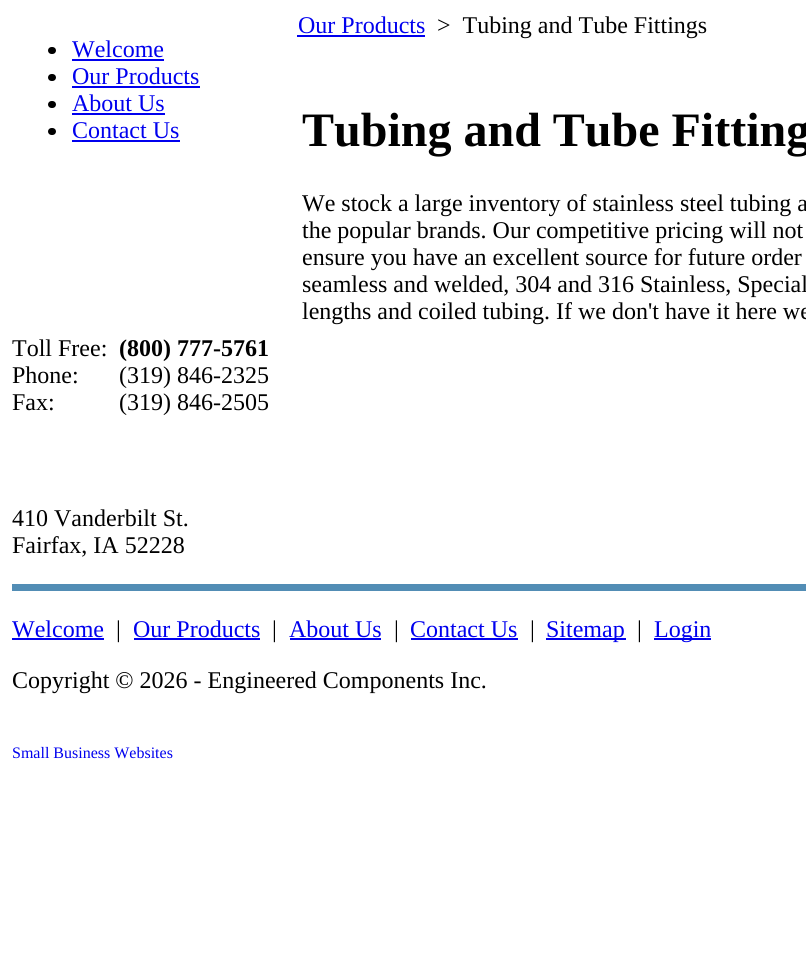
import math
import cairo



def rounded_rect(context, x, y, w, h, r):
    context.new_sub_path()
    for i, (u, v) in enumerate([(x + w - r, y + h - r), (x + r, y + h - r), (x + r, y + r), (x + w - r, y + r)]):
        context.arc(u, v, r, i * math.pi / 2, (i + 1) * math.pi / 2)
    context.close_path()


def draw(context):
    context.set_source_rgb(1, 1, 1)
    context.paint()
    context.set_source_rgb(82 / 255, 141 / 255, 181 / 255)
    context.rectangle(12, 584, 794, 7)
    context.fill()
    context.set_source_rgb(0, 0, 0)
    rounded_rect(context, 48, 47, 8, 7, 3.5)
    context.fill()
    context.set_source_rgb(0, 0, 238 / 255)
    context.rectangle(72, 59, 92, 2)
    context.fill()
    context.set_source_rgb(0, 0, 0)
    rounded_rect(context, 48, 74, 8, 7, 3.5)
    context.fill()
    context.set_source_rgb(0, 0, 238 / 255)
    context.rectangle(72, 86, 128, 2)
    context.fill()
    context.set_source_rgb(0, 0, 0)
    rounded_rect(context, 48, 101, 8, 7, 3.5)
    context.fill()
    context.set_source_rgb(0, 0, 238 / 255)
    context.rectangle(72, 113, 93, 2)
    context.fill()
    context.set_source_rgb(0, 0, 0)
    rounded_rect(context, 48, 128, 8, 7, 3.5)
    context.fill()
    context.set_source_rgb(0, 0, 238 / 255)
    context.rectangle(72, 140, 108, 2)
    context.fill()
    context.rectangle(297, 35, 128, 2)
    context.fill()
    context.rectangle(12, 638, 92, 2)
    context.fill()
    context.rectangle(134, 638, 126, 2)
    context.fill()
    context.rectangle(290, 638, 91, 2)
    context.fill()
    context.rectangle(411, 638, 107, 2)
    context.fill()
    context.rectangle(546, 638, 80, 2)
    context.fill()
    context.rectangle(654, 638, 57, 2)
    context.fill()
    context.select_font_face("Liberation Serif")
    context.set_font_size(24)
    context.move_to(72, 57)
    context.show_text("Welcome")
    context.move_to(72, 84)
    context.show_text("Our Products")
    context.move_to(72, 111)
    context.show_text("About Us")
    context.move_to(72, 138)
    context.show_text("Contact Us")
    context.set_source_rgb(0, 0, 0)
    context.move_to(12, 356)
    context.show_text("Toll Free:")
    context.select_font_face("Liberation Serif", cairo.FontSlant.NORMAL, cairo.FontWeight.BOLD)
    context.move_to(119, 356)
    context.show_text("(800) 777-5761")
    context.select_font_face("Liberation Serif")
    context.move_to(12, 383)
    context.show_text("Phone:")
    context.move_to(119, 383)
    context.show_text("(319) 846-2325")
    context.move_to(12, 410)
    context.show_text("Fax:")
    context.move_to(119, 410)
    context.show_text("(319) 846-2505")
    context.move_to(12, 526)
    context.show_text("410 Vanderbilt St.")
    context.move_to(12, 553)
    context.show_text("Fairfax, IA 52228")
    context.set_source_rgb(0, 0, 238 / 255)
    context.move_to(298, 33)
    context.show_text("Our Products")
    context.set_source_rgb(0, 0, 0)
    context.move_to(437, 33)
    context.show_text(">  Tubing and Tube Fittings")
    context.select_font_face("Liberation Serif", cairo.FontSlant.NORMAL, cairo.FontWeight.BOLD)
    context.set_font_size(48)
    context.move_to(302, 146)
    context.show_text("Tubing and Tube Fitting")
    context.select_font_face("Liberation Serif")
    context.set_font_size(24)
    context.move_to(302, 211)
    context.show_text("We stock a large inventory of stainless steel tubing a")
    context.move_to(302, 238)
    context.show_text("the popular brands. Our competitive pricing will not")
    context.move_to(302, 265)
    context.show_text("ensure you have an excellent source for future order")
    context.move_to(302, 292)
    context.show_text("seamless and welded, 304 and 316 Stainless, Special")
    context.move_to(302, 319)
    context.show_text("lengths and coiled tubing. If we don't have it here we")
    context.set_source_rgb(0, 0, 238 / 255)
    context.move_to(12, 637)
    context.show_text("Welcome")
    context.set_source_rgb(0, 0, 0)
    context.move_to(116, 637)
    context.show_text("|")
    context.set_source_rgb(0, 0, 238 / 255)
    context.move_to(133, 637)
    context.show_text("Our Products")
    context.set_source_rgb(0, 0, 0)
    context.move_to(272, 637)
    context.show_text("|")
    context.set_source_rgb(0, 0, 238 / 255)
    context.move_to(289, 637)
    context.show_text("About Us")
    context.set_source_rgb(0, 0, 0)
    context.move_to(394, 637)
    context.show_text("|")
    context.set_source_rgb(0, 0, 238 / 255)
    context.move_to(410, 637)
    context.show_text("Contact Us")
    context.set_source_rgb(0, 0, 0)
    context.move_to(530, 637)
    context.show_text("|")
    context.set_source_rgb(0, 0, 238 / 255)
    context.move_to(546, 637)
    context.show_text("Sitemap")
    context.set_source_rgb(0, 0, 0)
    context.move_to(637, 637)
    context.show_text("|")
    context.set_source_rgb(0, 0, 238 / 255)
    context.move_to(654, 637)
    context.show_text("Login")
    context.set_source_rgb(0, 0, 0)
    context.move_to(12, 688)
    context.show_text("Copyright © 2026 - Engineered Components Inc.")
    context.set_font_size(16)
    context.set_source_rgb(0, 0, 238 / 255)
    context.move_to(12, 758)
    context.show_text("Small Business Websites")


surface = cairo.ImageSurface(cairo.Format.RGB24, 806, 978)
context = cairo.Context(surface)
options = cairo.FontOptions()
options.set_hint_metrics(cairo.HintMetrics.OFF)
options.set_hint_style(cairo.HintStyle.NONE)
context.set_font_options(options)
context.set_miter_limit(4)
draw(context)
surface.write_to_png("out.png")
